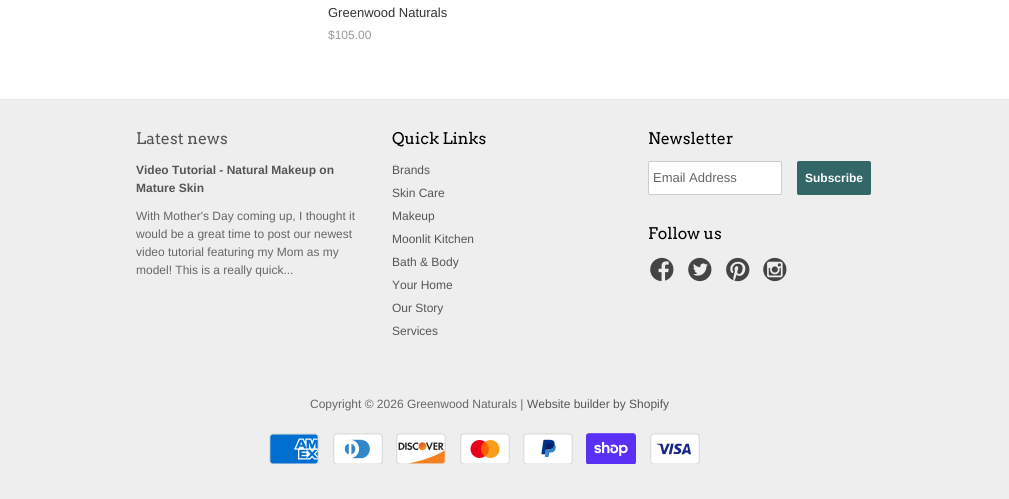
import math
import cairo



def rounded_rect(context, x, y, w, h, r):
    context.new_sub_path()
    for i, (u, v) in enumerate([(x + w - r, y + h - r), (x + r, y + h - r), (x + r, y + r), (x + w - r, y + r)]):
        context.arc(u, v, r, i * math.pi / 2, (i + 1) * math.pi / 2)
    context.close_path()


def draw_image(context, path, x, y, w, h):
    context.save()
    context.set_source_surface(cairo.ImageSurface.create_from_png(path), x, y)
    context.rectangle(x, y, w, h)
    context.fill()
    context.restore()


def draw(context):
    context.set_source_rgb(1, 1, 1)
    context.paint()
    context.set_source_rgb(238 / 255, 238 / 255, 238 / 255)
    context.rectangle(0, 100, 1009, 399)
    context.fill()
    context.set_source_rgb(229 / 255, 229 / 255, 229 / 255)
    context.rectangle(0, 99, 1009, 1)
    context.fill()
    context.set_source_rgb(1, 1, 1)
    rounded_rect(context, 648.5, 161.5, 133, 33, 1.5)
    context.fill_preserve()
    context.set_source_rgb(204 / 255, 204 / 255, 204 / 255)
    context.set_line_width(1)
    context.stroke()
    context.set_source_rgb(51 / 255, 102 / 255, 102 / 255)
    rounded_rect(context, 797, 161, 74, 34, 2)
    context.fill()
    draw_image(context, "images/1.png", 650, 257, 24, 25)
    draw_image(context, "images/2.png", 688, 257, 24, 25)
    draw_image(context, "images/3.png", 726, 257, 24, 25)
    draw_image(context, "images/4.png", 763, 257, 24, 25)
    draw_image(context, "images/5.png", 269, 433, 50, 31)
    draw_image(context, "images/6.png", 333, 433, 50, 31)
    draw_image(context, "images/7.png", 396, 433, 50, 31)
    draw_image(context, "images/8.png", 460, 433, 50, 31)
    draw_image(context, "images/9.png", 523, 433, 50, 31)
    draw_image(context, "images/10.png", 586, 433, 50, 31)
    draw_image(context, "images/11.png", 650, 433, 50, 31)
    context.select_font_face("Liberation Sans")
    context.set_font_size(13)
    context.set_source_rgb(51 / 255, 51 / 255, 51 / 255)
    context.move_to(328, 17)
    context.show_text("Greenwood Naturals")
    context.set_font_size(12)
    context.set_source_rgb(153 / 255, 153 / 255, 153 / 255)
    context.move_to(328, 39)
    context.show_text("$105.00")
    context.select_font_face("Arvo")
    context.set_font_size(16)
    context.set_source_rgb(85 / 255, 85 / 255, 85 / 255)
    context.move_to(136, 144)
    context.show_text("Latest news")
    context.select_font_face("Liberation Sans", cairo.FontSlant.NORMAL, cairo.FontWeight.BOLD)
    context.set_font_size(12)
    context.move_to(136, 174)
    context.show_text("Video Tutorial - Natural Makeup on")
    context.move_to(136, 192)
    context.show_text("Mature Skin")
    context.select_font_face("Liberation Sans")
    context.set_source_rgb(102 / 255, 102 / 255, 102 / 255)
    context.move_to(136, 220)
    context.show_text("With Mother's Day coming up, I thought it")
    context.move_to(136, 238)
    context.show_text("would be a great time to post our newest")
    context.move_to(136, 256)
    context.show_text("video tutorial featuring my Mom as my")
    context.move_to(136, 274)
    context.show_text("model! This is a really quick...")
    context.select_font_face("Arvo")
    context.set_font_size(16)
    context.set_source_rgb(0, 0, 0)
    context.move_to(392, 144)
    context.show_text("Quick Links")
    context.select_font_face("Liberation Sans")
    context.set_font_size(12)
    context.set_source_rgb(85 / 255, 85 / 255, 85 / 255)
    context.move_to(392, 174)
    context.show_text("Brands")
    context.move_to(392, 197)
    context.show_text("Skin Care")
    context.move_to(392, 220)
    context.show_text("Makeup")
    context.move_to(392, 243)
    context.show_text("Moonlit Kitchen")
    context.move_to(392, 266)
    context.show_text("Bath & Body")
    context.move_to(392, 289)
    context.show_text("Your Home")
    context.move_to(392, 312)
    context.show_text("Our Story")
    context.move_to(392, 335)
    context.show_text("Services")
    context.select_font_face("Arvo")
    context.set_font_size(16)
    context.set_source_rgb(0, 0, 0)
    context.move_to(648, 144)
    context.show_text("Newsletter")
    context.select_font_face("Liberation Sans")
    context.set_font_size(13)
    context.set_source_rgb(102 / 255, 102 / 255, 102 / 255)
    context.move_to(653, 182)
    context.show_text("Email Address")
    context.select_font_face("Liberation Sans", cairo.FontSlant.NORMAL, cairo.FontWeight.BOLD)
    context.set_font_size(12)
    context.set_source_rgb(1, 1, 1)
    context.move_to(805, 182)
    context.show_text("Subscribe")
    context.select_font_face("Arvo")
    context.set_font_size(16)
    context.set_source_rgb(0, 0, 0)
    context.move_to(648, 239)
    context.show_text("Follow us")
    context.select_font_face("Liberation Sans")
    context.set_font_size(12)
    context.set_source_rgb(102 / 255, 102 / 255, 102 / 255)
    context.move_to(310, 408)
    context.show_text("Copyright © 2026 Greenwood Naturals |")
    context.set_source_rgb(85 / 255, 85 / 255, 85 / 255)
    context.move_to(527, 408)
    context.show_text("Website builder by Shopify")


surface = cairo.ImageSurface(cairo.Format.RGB24, 1009, 499)
context = cairo.Context(surface)
options = cairo.FontOptions()
options.set_hint_metrics(cairo.HintMetrics.OFF)
options.set_hint_style(cairo.HintStyle.NONE)
context.set_font_options(options)
context.set_miter_limit(4)
draw(context)
surface.write_to_png("out.png")
